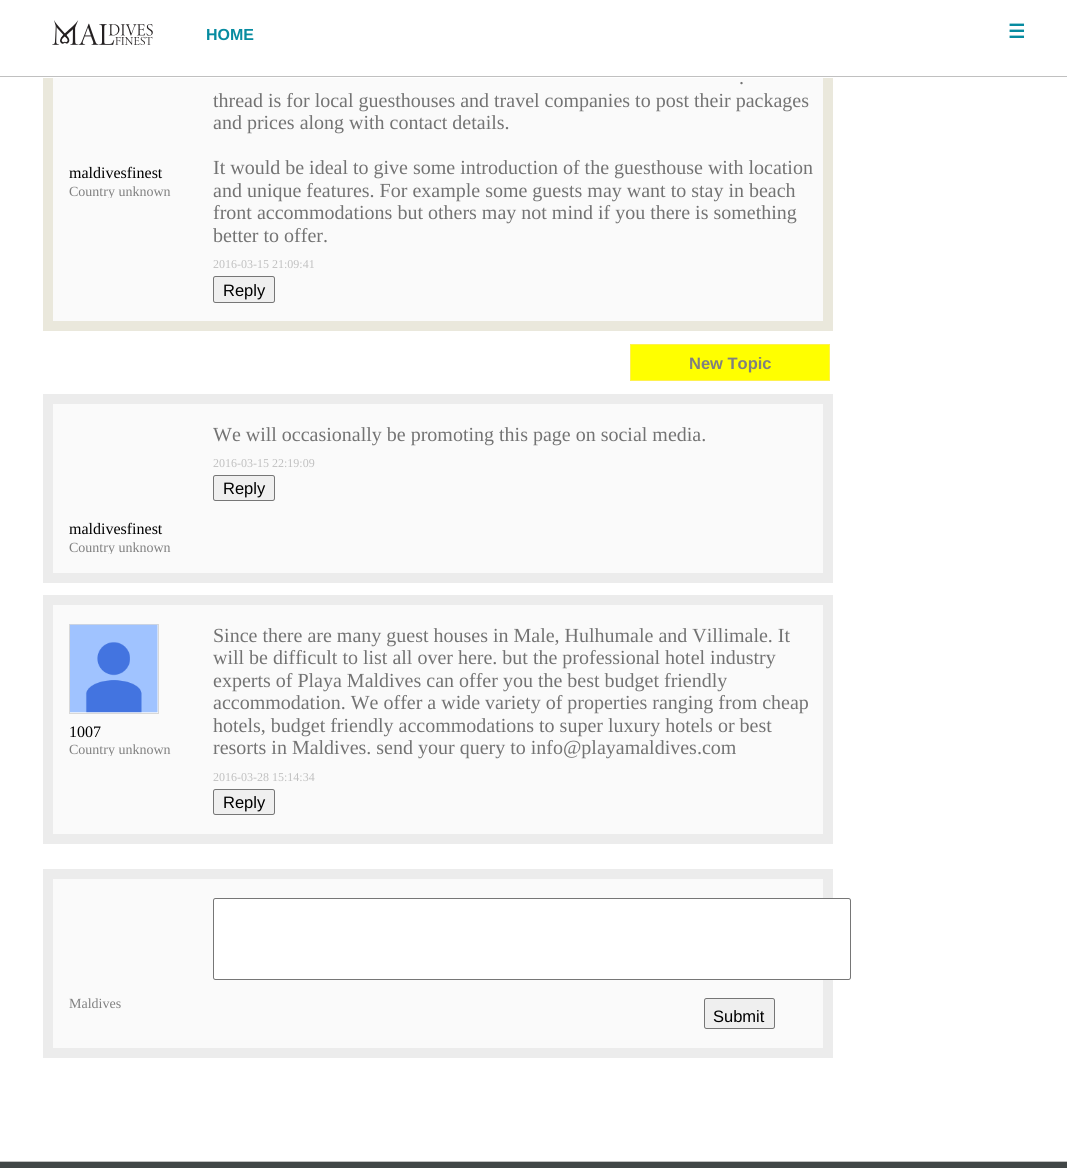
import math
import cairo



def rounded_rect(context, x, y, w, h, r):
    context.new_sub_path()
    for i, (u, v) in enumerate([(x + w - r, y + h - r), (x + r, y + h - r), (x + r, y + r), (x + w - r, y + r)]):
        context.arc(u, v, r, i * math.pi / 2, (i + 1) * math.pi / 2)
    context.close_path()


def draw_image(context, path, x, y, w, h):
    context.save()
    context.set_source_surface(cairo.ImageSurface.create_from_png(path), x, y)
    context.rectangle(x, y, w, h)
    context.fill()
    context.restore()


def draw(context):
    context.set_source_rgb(1, 1, 1)
    context.paint()
    context.set_source_rgb(250 / 255, 250 / 255, 250 / 255)
    context.rectangle(53, 78, 770, 243)
    context.fill()
    context.rectangle(48, 43, 780, 283)
    context.set_source_rgb(234 / 255, 232 / 255, 220 / 255)
    context.set_line_width(10)
    context.stroke()
    context.set_source_rgb(1, 1, 1)
    context.rectangle(43, 38, 790, 40)
    context.fill()
    context.set_source_rgb(192 / 255, 192 / 255, 192 / 255)
    context.rectangle(0, 76, 1067, 1)
    context.fill()
    draw_image(context, "images/1.png", 52, 20, 101, 25)
    context.set_source_rgb(239 / 255, 239 / 255, 239 / 255)
    rounded_rect(context, 213.5, 276.5, 61, 26, 2)
    context.fill_preserve()
    context.set_source_rgb(118 / 255, 118 / 255, 118 / 255)
    context.set_line_width(1)
    context.stroke()
    context.set_source_rgb(1, 1, 0)
    context.rectangle(630.5, 344.5, 199, 36)
    context.fill_preserve()
    context.set_source_rgb(1, 241 / 255, 79 / 255)
    context.stroke()
    context.set_source_rgb(250 / 255, 250 / 255, 250 / 255)
    context.rectangle(48, 399, 780, 179)
    context.fill_preserve()
    context.set_source_rgb(236 / 255, 236 / 255, 236 / 255)
    context.set_line_width(10)
    context.stroke()
    context.set_source_rgb(239 / 255, 239 / 255, 239 / 255)
    rounded_rect(context, 213.5, 475.5, 61, 25, 2)
    context.fill_preserve()
    context.set_source_rgb(118 / 255, 118 / 255, 118 / 255)
    context.set_line_width(1)
    context.stroke()
    context.set_source_rgb(250 / 255, 250 / 255, 250 / 255)
    context.rectangle(48, 600, 780, 239)
    context.fill_preserve()
    context.set_source_rgb(236 / 255, 236 / 255, 236 / 255)
    context.set_line_width(10)
    context.stroke()
    context.rectangle(69.5, 624.5, 89, 89)
    context.set_source_rgb(216 / 255, 216 / 255, 216 / 255)
    context.set_line_width(1)
    context.stroke()
    draw_image(context, "images/2.png", 70, 624, 88, 89)
    context.set_source_rgb(239 / 255, 239 / 255, 239 / 255)
    rounded_rect(context, 213.5, 789.5, 61, 25, 2)
    context.fill_preserve()
    context.set_source_rgb(118 / 255, 118 / 255, 118 / 255)
    context.stroke()
    context.set_source_rgb(250 / 255, 250 / 255, 250 / 255)
    context.rectangle(48, 874, 780, 179)
    context.fill_preserve()
    context.set_source_rgb(236 / 255, 236 / 255, 236 / 255)
    context.set_line_width(10)
    context.stroke()
    context.set_source_rgb(1, 1, 1)
    rounded_rect(context, 213.5, 898.5, 637, 81, 2)
    context.fill_preserve()
    context.set_source_rgb(118 / 255, 118 / 255, 118 / 255)
    context.set_line_width(1)
    context.stroke()
    context.set_source_rgb(239 / 255, 239 / 255, 239 / 255)
    rounded_rect(context, 704.5, 998.5, 70, 30, 2)
    context.fill_preserve()
    context.set_source_rgb(118 / 255, 118 / 255, 118 / 255)
    context.stroke()
    context.set_source_rgb(65 / 255, 70 / 255, 71 / 255)
    context.rectangle(0, 1162, 1067, 6)
    context.fill()
    context.set_source_rgb(192 / 255, 192 / 255, 192 / 255)
    context.rectangle(0, 1161, 1067, 1)
    context.fill()
    context.select_font_face("Liberation Sans", cairo.FontSlant.NORMAL, cairo.FontWeight.BOLD)
    context.set_font_size(16)
    context.set_source_rgb(6 / 255, 139 / 255, 160 / 255)
    context.move_to(206, 40)
    context.show_text("HOME")
    context.select_font_face("DejaVu Sans", cairo.FontSlant.NORMAL, cairo.FontWeight.BOLD)
    context.set_font_size(19)
    context.move_to(1008, 38)
    context.show_text("☰")
    context.select_font_face("Liberation Serif")
    context.set_font_size(16)
    context.set_source_rgb(0, 0, 0)
    context.move_to(69, 178)
    context.show_text("maldivesfinest")
    context.save()
    context.rectangle(69, 66, 112, 132)
    context.clip()
    context.set_font_size(14)
    context.set_source_rgb(128 / 255, 128 / 255, 128 / 255)
    context.move_to(69, 196)
    context.show_text("Country unknown")
    context.restore()
    context.set_font_size(20)
    context.set_source_rgb(115 / 255, 115 / 255, 115 / 255)
    context.move_to(739, 84)
    context.show_text(".")
    context.move_to(213, 107)
    context.show_text("thread is for local guesthouses and travel companies to post their packages")
    context.move_to(213, 129)
    context.show_text("and prices along with contact details.")
    context.move_to(213, 174)
    context.show_text("It would be ideal to give some introduction of the guesthouse with location")
    context.move_to(213, 197)
    context.show_text("and unique features. For example some guests may want to stay in beach")
    context.move_to(213, 219)
    context.show_text("front accommodations but others may not mind if you there is something")
    context.move_to(213, 242)
    context.show_text("better to offer.")
    context.set_font_size(12)
    context.set_source_rgb(192 / 255, 192 / 255, 192 / 255)
    context.move_to(213, 268)
    context.show_text("2016-03-15 21:09:41")
    context.select_font_face("Liberation Sans")
    context.set_font_size(16.5)
    context.set_source_rgb(0, 0, 0)
    context.move_to(223, 296)
    context.show_text("Reply")
    context.select_font_face("Liberation Sans", cairo.FontSlant.NORMAL, cairo.FontWeight.BOLD)
    context.set_source_rgb(128 / 255, 128 / 255, 128 / 255)
    context.move_to(689, 369)
    context.show_text("New Topic")
    context.select_font_face("Liberation Serif")
    context.set_font_size(20)
    context.set_source_rgb(115 / 255, 115 / 255, 115 / 255)
    context.move_to(213, 441)
    context.show_text("We will occasionally be promoting this page on social media.")
    context.set_font_size(12)
    context.set_source_rgb(192 / 255, 192 / 255, 192 / 255)
    context.move_to(213, 467)
    context.show_text("2016-03-15 22:19:09")
    context.select_font_face("Liberation Sans")
    context.set_font_size(16.5)
    context.set_source_rgb(0, 0, 0)
    context.move_to(223, 494)
    context.show_text("Reply")
    context.select_font_face("Liberation Serif")
    context.set_font_size(16)
    context.move_to(69, 534)
    context.show_text("maldivesfinest")
    context.save()
    context.rectangle(69, 423, 112, 131)
    context.clip()
    context.set_font_size(14)
    context.set_source_rgb(128 / 255, 128 / 255, 128 / 255)
    context.move_to(69, 552)
    context.show_text("Country unknown")
    context.restore()
    context.move_to(69, 737)
    context.show_text("1007")
    context.save()
    context.rectangle(69, 624, 112, 132)
    context.clip()
    context.set_font_size(14)
    context.set_source_rgb(128 / 255, 128 / 255, 128 / 255)
    context.move_to(69, 754)
    context.show_text("Country unknown")
    context.restore()
    context.set_font_size(20)
    context.set_source_rgb(115 / 255, 115 / 255, 115 / 255)
    context.move_to(213, 642)
    context.show_text("Since there are many guest houses in Male, Hulhumale and Villimale. It")
    context.move_to(213, 664)
    context.show_text("will be difficult to list all over here. but the professional hotel industry")
    context.move_to(213, 687)
    context.show_text("experts of Playa Maldives can offer you the best budget friendly")
    context.move_to(213, 709)
    context.show_text("accommodation. We offer a wide variety of properties ranging from cheap")
    context.move_to(213, 732)
    context.show_text("hotels, budget friendly accommodations to super luxury hotels or best")
    context.move_to(213, 754)
    context.show_text("resorts in Maldives. send your query to info@playamaldives.com")
    context.set_font_size(12)
    context.set_source_rgb(192 / 255, 192 / 255, 192 / 255)
    context.move_to(213, 781)
    context.show_text("2016-03-28 15:14:34")
    context.select_font_face("Liberation Sans")
    context.set_font_size(16.5)
    context.set_source_rgb(0, 0, 0)
    context.move_to(223, 808)
    context.show_text("Reply")
    context.select_font_face("Liberation Serif")
    context.set_font_size(14)
    context.set_source_rgb(128 / 255, 128 / 255, 128 / 255)
    context.move_to(69, 1008)
    context.show_text("Maldives")
    context.select_font_face("Liberation Sans")
    context.set_font_size(16.5)
    context.set_source_rgb(0, 0, 0)
    context.move_to(713, 1022)
    context.show_text("Submit")


surface = cairo.ImageSurface(cairo.Format.RGB24, 1067, 1168)
context = cairo.Context(surface)
options = cairo.FontOptions()
options.set_hint_metrics(cairo.HintMetrics.OFF)
options.set_hint_style(cairo.HintStyle.NONE)
context.set_font_options(options)
context.set_miter_limit(4)
draw(context)
surface.write_to_png("out.png")
